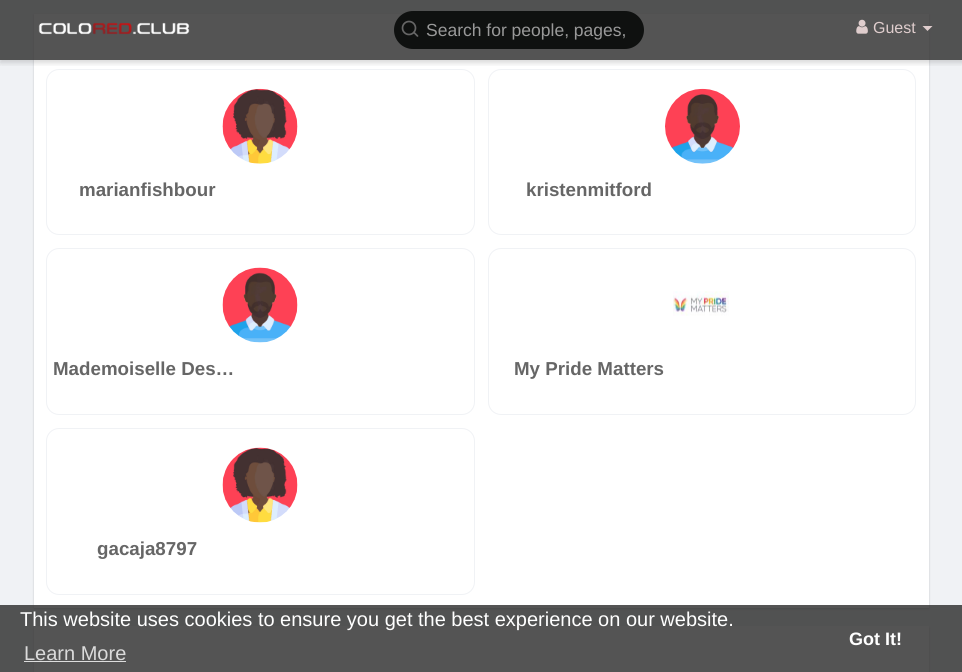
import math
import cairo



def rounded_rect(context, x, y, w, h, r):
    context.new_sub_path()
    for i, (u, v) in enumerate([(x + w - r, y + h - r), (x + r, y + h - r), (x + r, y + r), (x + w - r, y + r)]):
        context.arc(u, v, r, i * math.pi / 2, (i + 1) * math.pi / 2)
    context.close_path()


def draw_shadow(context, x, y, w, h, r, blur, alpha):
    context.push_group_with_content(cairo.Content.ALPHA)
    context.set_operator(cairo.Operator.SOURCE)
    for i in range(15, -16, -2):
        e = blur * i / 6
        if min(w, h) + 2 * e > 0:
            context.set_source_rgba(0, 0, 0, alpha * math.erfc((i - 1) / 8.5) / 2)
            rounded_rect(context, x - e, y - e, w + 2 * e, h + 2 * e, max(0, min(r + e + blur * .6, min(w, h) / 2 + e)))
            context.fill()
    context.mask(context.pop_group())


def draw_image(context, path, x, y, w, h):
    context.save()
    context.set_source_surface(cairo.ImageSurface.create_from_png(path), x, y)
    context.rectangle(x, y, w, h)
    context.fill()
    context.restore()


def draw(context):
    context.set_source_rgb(240 / 255, 242 / 255, 245 / 255)
    context.paint()
    context.set_source_rgb(0, 0, 0)
    draw_shadow(context, 34, 15, 895, 594, 0, 1, 0.2)
    context.set_source_rgb(1, 1, 1)
    context.rectangle(34, 14, 895, 594)
    context.fill()
    rounded_rect(context, 46.5, 69.5, 428, 165, 12.5)
    context.set_source_rgb(240 / 255, 242 / 255, 245 / 255)
    context.set_line_width(1)
    context.stroke()
    rounded_rect(context, 488.5, 69.5, 427, 165, 12.5)
    context.stroke()
    context.save()
    context.rectangle(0, 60, 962, 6)
    context.clip()
    context.set_source_rgb(0, 0, 0)
    draw_shadow(context, 0, 3, 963, 60, 0, 2.5, 0.15)
    context.restore()
    context.set_source_rgba(47 / 255, 47 / 255, 47 / 255, 0.82)
    context.rectangle(0, 0, 962, 60)
    context.fill()
    draw_image(context, "images/1.png", 38, 22, 152, 13)
    context.set_source_rgb(15 / 255, 17 / 255, 16 / 255)
    rounded_rect(context, 394, 11, 250, 38, 19)
    context.fill()
    context.arc(409, 28, 6.5, 0, 2 * math.pi)
    context.set_source_rgb(102 / 255, 102 / 255, 102 / 255)
    context.set_line_width(1.7)
    context.stroke()
    context.new_path()
    context.move_to(417.5, 36)
    context.line_to(414, 32.5)
    context.set_line_cap(cairo.LineCap.ROUND)
    context.set_line_join(cairo.LineJoin.ROUND)
    context.stroke()
    draw_image(context, "images/2.png", 856, 19, 12, 15)
    context.set_source_rgb(223 / 255, 205 / 255, 205 / 255)
    context.new_path()
    context.move_to(922.5, 26)
    context.line_to(932.5, 26)
    context.line_to(927.5, 31)
    context.close_path()
    context.fill()
    draw_image(context, "images/3.png", 222, 88, 76, 76)
    draw_image(context, "images/4.png", 665, 88, 75, 76)
    rounded_rect(context, 46.5, 248.5, 428, 166, 12.5)
    context.set_source_rgb(240 / 255, 242 / 255, 245 / 255)
    context.set_line_width(1)
    context.set_line_cap(cairo.LineCap.BUTT)
    context.set_line_join(cairo.LineJoin.MITER)
    context.stroke()
    draw_image(context, "images/5.png", 222, 267, 76, 76)
    rounded_rect(context, 488.5, 248.5, 427, 166, 12.5)
    context.stroke()
    draw_image(context, "images/6.png", 673, 291, 56, 25)
    rounded_rect(context, 46.5, 428.5, 428, 166, 12.5)
    context.stroke()
    draw_image(context, "images/7.png", 222, 447, 76, 76)
    context.set_source_rgb(0, 0, 0)
    draw_shadow(context, 34, 628, 895, 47, 0, 1, 0.2)
    context.set_source_rgb(1, 1, 1)
    context.rectangle(34, 626, 895, 46)
    context.fill()
    context.set_source_rgba(47 / 255, 47 / 255, 47 / 255, 0.82)
    context.rectangle(0, 605, 962, 67)
    context.fill()
    context.set_source_rgba(1, 1, 1, 0.8)
    context.rectangle(24, 661, 102, 1)
    context.fill()
    context.select_font_face("Liberation Sans")
    context.set_font_size(17.5)
    context.set_source_rgb(153 / 255, 153 / 255, 153 / 255)
    context.move_to(426, 36)
    context.show_text("Search for people, pages,")
    context.set_font_size(16)
    context.set_source_rgb(223 / 255, 205 / 255, 205 / 255)
    context.move_to(873, 33)
    context.show_text("Guest")
    context.select_font_face("Liberation Sans", cairo.FontSlant.NORMAL, cairo.FontWeight.BOLD)
    context.set_font_size(18.75)
    context.set_source_rgb(102 / 255, 102 / 255, 102 / 255)
    context.move_to(79, 196)
    context.show_text("marianfishbour")
    context.move_to(526, 196)
    context.show_text("kristenmitford")
    context.move_to(53, 375)
    context.show_text("Mademoiselle Des…")
    context.move_to(514, 375)
    context.show_text("My Pride Matters")
    context.move_to(97, 555)
    context.show_text("gacaja8797")
    context.select_font_face("Liberation Sans")
    context.set_font_size(20)
    context.set_source_rgb(1, 1, 1)
    context.move_to(20, 626)
    context.show_text("This website uses cookies to ensure you get the best experience on our website.")
    context.set_source_rgb(219 / 255, 219 / 255, 219 / 255)
    context.move_to(24, 660)
    context.show_text("Learn More")
    context.select_font_face("Liberation Sans", cairo.FontSlant.NORMAL, cairo.FontWeight.BOLD)
    context.set_font_size(18)
    context.set_source_rgb(1, 1, 1)
    context.move_to(849, 645)
    context.show_text("Got It!")


surface = cairo.ImageSurface(cairo.Format.RGB24, 962, 672)
context = cairo.Context(surface)
options = cairo.FontOptions()
options.set_hint_metrics(cairo.HintMetrics.OFF)
options.set_hint_style(cairo.HintStyle.NONE)
context.set_font_options(options)
context.set_miter_limit(4)
draw(context)
surface.write_to_png("out.png")
